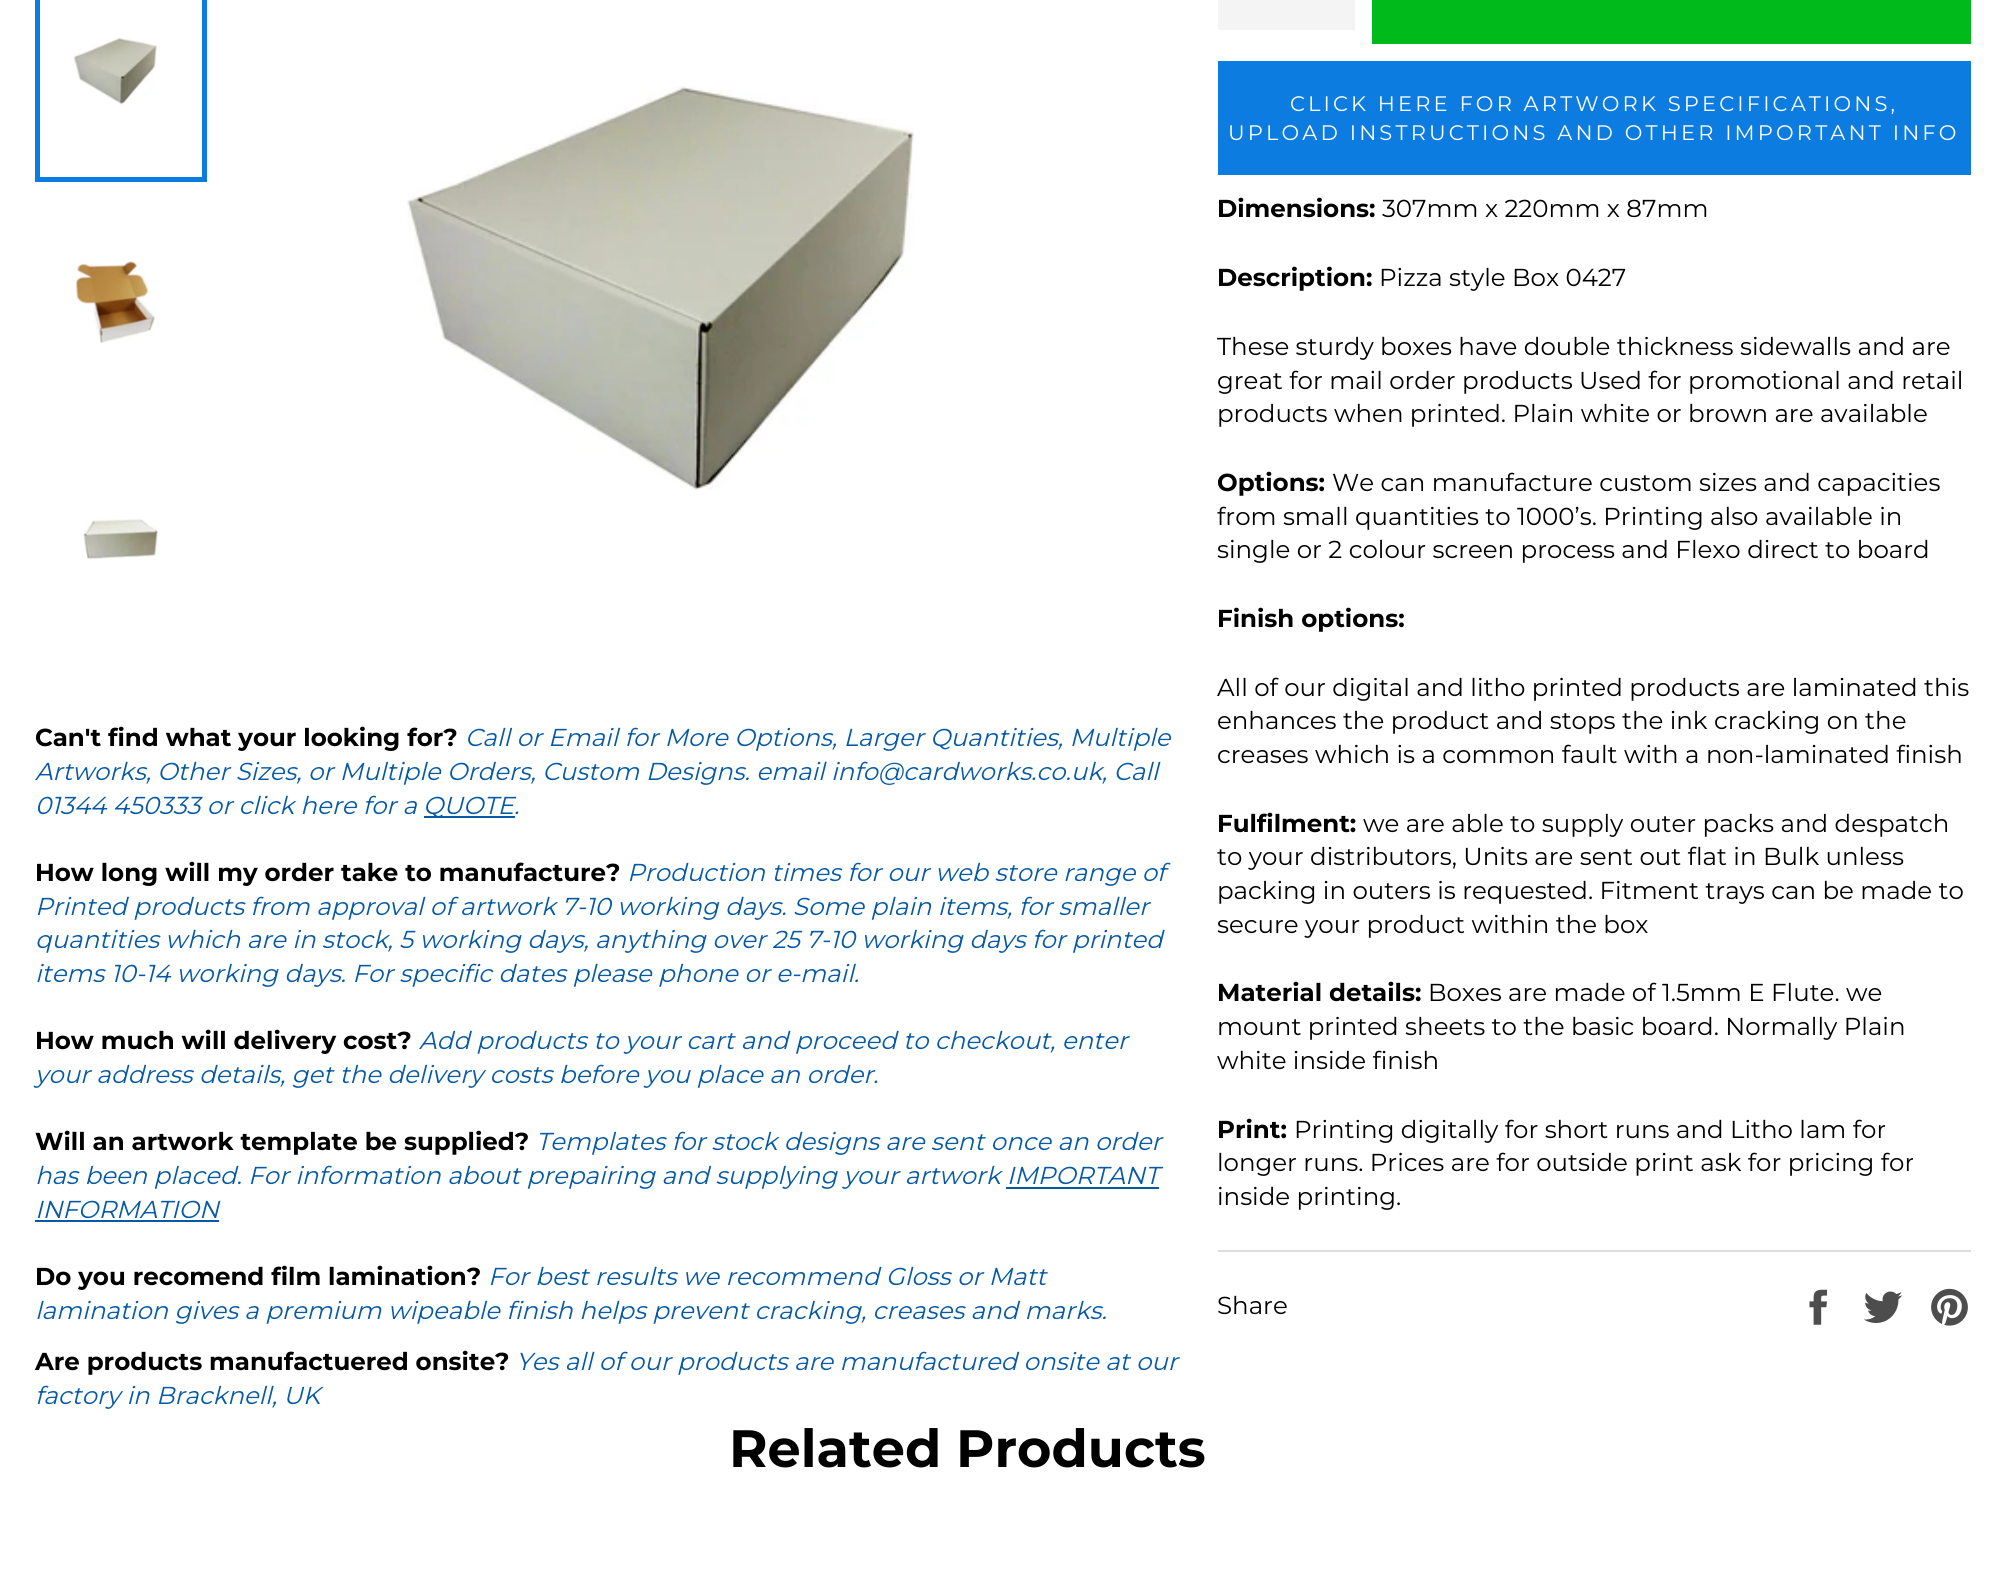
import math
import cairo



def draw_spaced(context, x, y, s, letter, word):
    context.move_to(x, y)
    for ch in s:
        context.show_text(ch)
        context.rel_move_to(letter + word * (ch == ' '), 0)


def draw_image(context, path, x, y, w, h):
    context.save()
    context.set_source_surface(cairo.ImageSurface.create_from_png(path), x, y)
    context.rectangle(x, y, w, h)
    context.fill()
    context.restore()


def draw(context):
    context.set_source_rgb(1, 1, 1)
    context.paint()
    draw_image(context, "images/1.png", 73, 38, 84, 67)
    context.rectangle(37.5, -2.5, 167, 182)
    context.set_source_rgb(13 / 255, 124 / 255, 225 / 255)
    context.set_line_width(5)
    context.stroke()
    draw_image(context, "images/2.png", 75, 261, 80, 82)
    draw_image(context, "images/3.png", 83, 519, 76, 40)
    draw_image(context, "images/4.png", 407, 86, 508, 404)
    context.set_source_rgb(6 / 255, 89 / 255, 165 / 255)
    context.rectangle(424, 816, 91, 2)
    context.fill()
    context.rectangle(1006, 1187, 153, 2)
    context.fill()
    context.rectangle(35, 1220, 184, 2)
    context.fill()
    context.set_source_rgb(244 / 255, 244 / 255, 244 / 255)
    context.rectangle(1218, 0, 137, 30)
    context.fill()
    context.set_source_rgb(0, 186 / 255, 28 / 255)
    context.rectangle(1372, 0, 599, 44)
    context.fill()
    context.set_source_rgb(13 / 255, 124 / 255, 225 / 255)
    context.rectangle(1218, 61, 753, 114)
    context.fill()
    context.set_source_rgb(221 / 255, 221 / 255, 221 / 255)
    context.rectangle(1218, 1250, 753, 2)
    context.fill()
    draw_image(context, "images/5.png", 1809, 1289, 18, 36)
    draw_image(context, "images/6.png", 1863, 1291, 40, 32)
    draw_image(context, "images/7.png", 1931, 1288, 37, 38)
    context.select_font_face("Montserrat", cairo.FontSlant.NORMAL, cairo.FontWeight.BOLD)
    context.set_font_size(24.5)
    context.set_source_rgb(0, 0, 0)
    context.move_to(35, 746)
    context.show_text("Can't find what your looking for?")
    context.select_font_face("Montserrat", cairo.FontSlant.ITALIC)
    context.set_source_rgb(6 / 255, 89 / 255, 165 / 255)
    context.move_to(465, 746)
    context.show_text("Call or Email for More Options, Larger Quantities, Multiple")
    context.move_to(35, 780)
    context.show_text("Artworks, Other Sizes, or Multiple Orders, Custom Designs. email info@cardworks.co.uk, Call")
    context.move_to(35, 814)
    context.show_text("01344 450333 or click here for a")
    context.move_to(423, 814)
    context.show_text("QUOTE.")
    context.select_font_face("Montserrat", cairo.FontSlant.NORMAL, cairo.FontWeight.BOLD)
    context.set_source_rgb(0, 0, 0)
    context.move_to(35, 881)
    context.show_text("How long will my order take to manufacture?")
    context.select_font_face("Montserrat", cairo.FontSlant.ITALIC)
    context.set_source_rgb(6 / 255, 89 / 255, 165 / 255)
    context.move_to(627, 881)
    context.show_text("Production times for our web store range of")
    context.move_to(35, 915)
    context.show_text("Printed products from approval of artwork 7-10 working days. Some plain items, for smaller")
    context.move_to(35, 948)
    context.show_text("quantities which are in stock, 5 working days, anything over 25 7-10 working days for printed")
    context.move_to(35, 982)
    context.show_text("items 10-14 working days. For specific dates please phone or e-mail.")
    context.select_font_face("Montserrat", cairo.FontSlant.NORMAL, cairo.FontWeight.BOLD)
    context.set_source_rgb(0, 0, 0)
    context.move_to(35, 1049)
    context.show_text("How much will delivery cost?")
    context.select_font_face("Montserrat", cairo.FontSlant.ITALIC)
    context.set_source_rgb(6 / 255, 89 / 255, 165 / 255)
    context.move_to(419, 1049)
    context.show_text("Add products to your cart and proceed to checkout, enter")
    context.move_to(35, 1083)
    context.show_text("your address details, get the delivery costs before you place an order.")
    context.select_font_face("Montserrat", cairo.FontSlant.NORMAL, cairo.FontWeight.BOLD)
    context.set_source_rgb(0, 0, 0)
    context.move_to(35, 1150)
    context.show_text("Will an artwork template be supplied?")
    context.select_font_face("Montserrat", cairo.FontSlant.ITALIC)
    context.set_source_rgb(6 / 255, 89 / 255, 165 / 255)
    context.move_to(536, 1150)
    context.show_text("Templates for stock designs are sent once an order")
    context.move_to(35, 1184)
    context.show_text("has been placed. For information about prepairing and supplying your artwork IMPORTANT")
    context.move_to(35, 1218)
    context.show_text("INFORMATION")
    context.select_font_face("Montserrat", cairo.FontSlant.NORMAL, cairo.FontWeight.BOLD)
    context.set_source_rgb(0, 0, 0)
    context.move_to(35, 1285)
    context.show_text("Do you recomend film lamination?")
    context.select_font_face("Montserrat", cairo.FontSlant.ITALIC)
    context.set_source_rgb(6 / 255, 89 / 255, 165 / 255)
    context.move_to(488, 1285)
    context.show_text("For best results we recommend Gloss or Matt")
    context.move_to(35, 1319)
    context.show_text("lamination gives a premium wipeable finish helps prevent cracking, creases and marks.")
    context.select_font_face("Montserrat", cairo.FontSlant.NORMAL, cairo.FontWeight.BOLD)
    context.set_source_rgb(0, 0, 0)
    context.move_to(35, 1370)
    context.show_text("Are products manufactuered onsite?")
    context.select_font_face("Montserrat", cairo.FontSlant.ITALIC)
    context.set_source_rgb(6 / 255, 89 / 255, 165 / 255)
    context.move_to(516, 1370)
    context.show_text("Yes all of our products are manufactured onsite at our")
    context.move_to(35, 1404)
    context.show_text("factory in Bracknell, UK")
    context.select_font_face("Montserrat")
    context.set_font_size(21)
    context.set_source_rgb(1, 1, 1)
    draw_spaced(context, 1290, 111, "CLICK HERE FOR ARTWORK SPECIFICATIONS,", 3.15, 0)
    draw_spaced(context, 1228, 140, "UPLOAD INSTRUCTIONS AND OTHER IMPORTANT INFO", 3.15, 0)
    context.select_font_face("Montserrat", cairo.FontSlant.NORMAL, cairo.FontWeight.BOLD)
    context.set_font_size(24.5)
    context.set_source_rgb(0, 0, 0)
    context.move_to(1217, 217)
    context.show_text("Dimensions:")
    context.select_font_face("Montserrat")
    context.move_to(1382, 217)
    context.show_text("307mm x 220mm x 87mm")
    context.select_font_face("Montserrat", cairo.FontSlant.NORMAL, cairo.FontWeight.BOLD)
    context.move_to(1217, 286)
    context.show_text("Description:")
    context.select_font_face("Montserrat")
    context.move_to(1379, 286)
    context.show_text("Pizza style Box 0427")
    context.move_to(1217, 355)
    context.show_text("These sturdy boxes have double thickness sidewalls and are")
    context.move_to(1217, 389)
    context.show_text("great for mail order products Used for promotional and retail")
    context.move_to(1217, 422)
    context.show_text("products when printed. Plain white or brown are available")
    context.select_font_face("Montserrat", cairo.FontSlant.NORMAL, cairo.FontWeight.BOLD)
    context.move_to(1217, 491)
    context.show_text("Options:")
    context.select_font_face("Montserrat")
    context.move_to(1332, 491)
    context.show_text("We can manufacture custom sizes and capacities")
    context.move_to(1217, 525)
    context.show_text("from small quantities to 1000’s. Printing also available in")
    context.move_to(1217, 558)
    context.show_text("single or 2 colour screen process and Flexo direct to board")
    context.select_font_face("Montserrat", cairo.FontSlant.NORMAL, cairo.FontWeight.BOLD)
    context.move_to(1217, 627)
    context.show_text("Finish options:")
    context.select_font_face("Montserrat")
    context.move_to(1217, 696)
    context.show_text("All of our digital and litho printed products are laminated this")
    context.move_to(1217, 729)
    context.show_text("enhances the product and stops the ink cracking on the")
    context.move_to(1217, 763)
    context.show_text("creases which is a common fault with a non-laminated finish")
    context.select_font_face("Montserrat", cairo.FontSlant.NORMAL, cairo.FontWeight.BOLD)
    context.move_to(1217, 832)
    context.show_text("Fulfilment:")
    context.select_font_face("Montserrat")
    context.move_to(1363, 832)
    context.show_text("we are able to supply outer packs and despatch")
    context.move_to(1217, 865)
    context.show_text("to your distributors, Units are sent out flat in Bulk unless")
    context.move_to(1217, 899)
    context.show_text("packing in outers is requested. Fitment trays can be made to")
    context.move_to(1217, 933)
    context.show_text("secure your product within the box")
    context.select_font_face("Montserrat", cairo.FontSlant.NORMAL, cairo.FontWeight.BOLD)
    context.move_to(1217, 1001)
    context.show_text("Material details:")
    context.select_font_face("Montserrat")
    context.move_to(1428, 1001)
    context.show_text("Boxes are made of 1.5mm E Flute. we")
    context.move_to(1217, 1035)
    context.show_text("mount printed sheets to the basic board. Normally Plain")
    context.move_to(1217, 1069)
    context.show_text("white inside finish")
    context.select_font_face("Montserrat", cairo.FontSlant.NORMAL, cairo.FontWeight.BOLD)
    context.move_to(1217, 1138)
    context.show_text("Print:")
    context.select_font_face("Montserrat")
    context.move_to(1294, 1138)
    context.show_text("Printing digitally for short runs and Litho lam for")
    context.move_to(1217, 1171)
    context.show_text("longer runs. Prices are for outside print ask for pricing for")
    context.move_to(1217, 1205)
    context.show_text("inside printing.")
    context.move_to(1217, 1314)
    context.show_text("Share")
    context.select_font_face("Montserrat", cairo.FontSlant.NORMAL, cairo.FontWeight.BOLD)
    context.set_font_size(52.5)
    context.move_to(729, 1467)
    context.show_text("Related Products")


surface = cairo.ImageSurface(cairo.Format.RGB24, 2005, 1581)
context = cairo.Context(surface)
options = cairo.FontOptions()
options.set_hint_metrics(cairo.HintMetrics.OFF)
options.set_hint_style(cairo.HintStyle.NONE)
context.set_font_options(options)
context.set_miter_limit(4)
draw(context)
surface.write_to_png("out.png")
